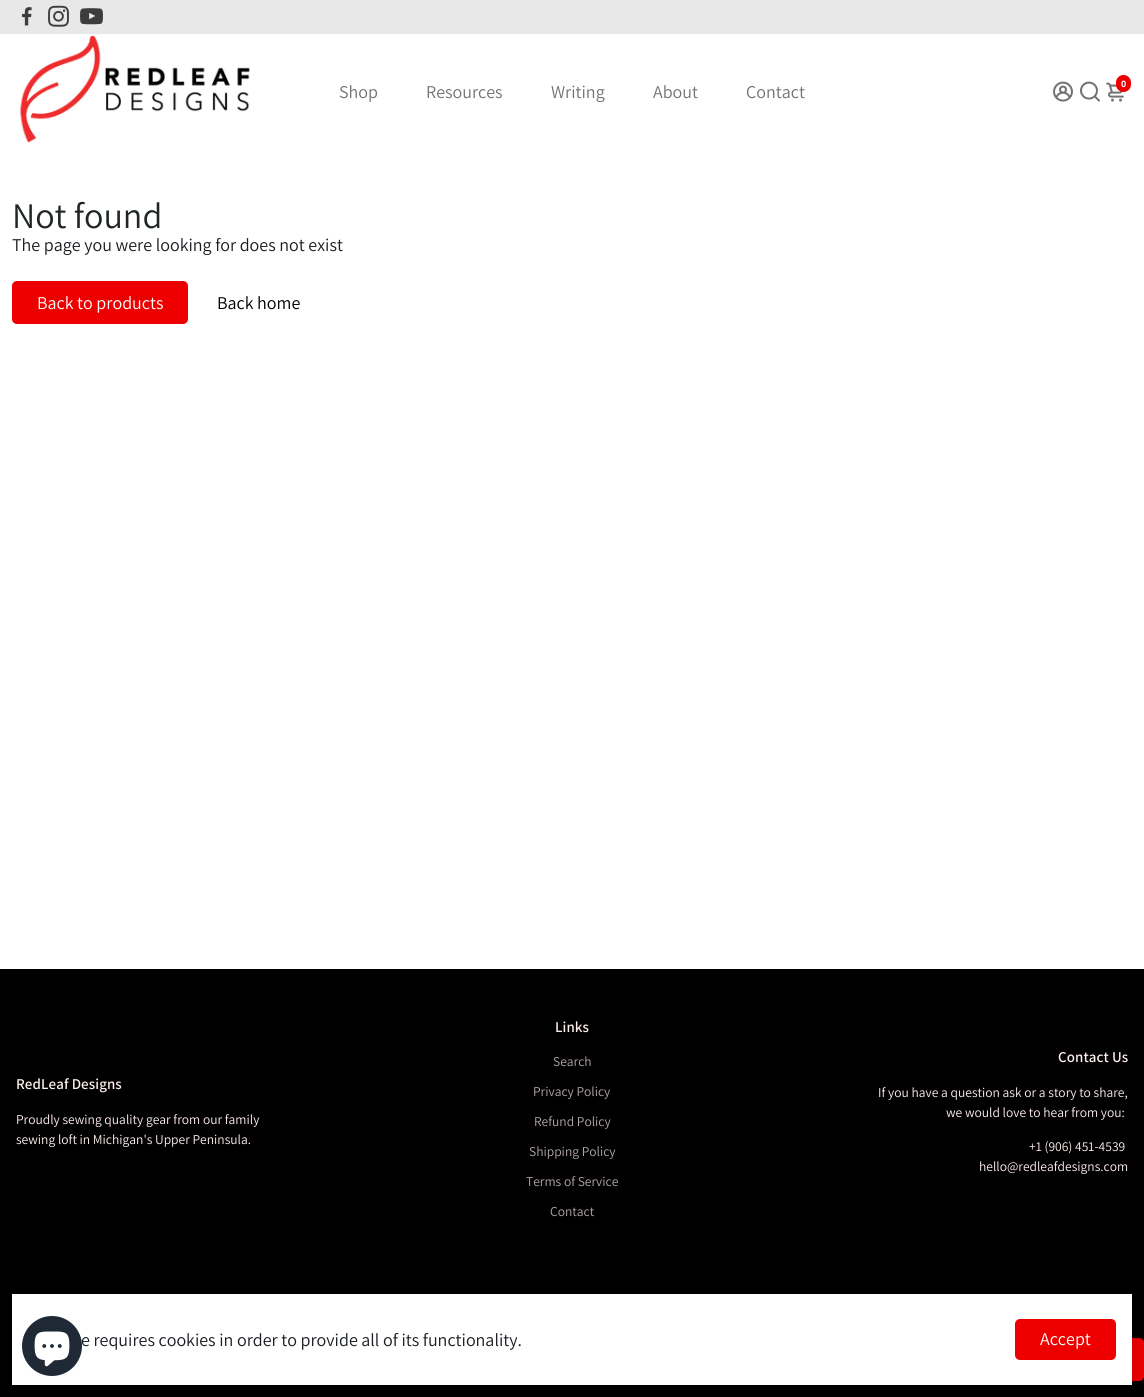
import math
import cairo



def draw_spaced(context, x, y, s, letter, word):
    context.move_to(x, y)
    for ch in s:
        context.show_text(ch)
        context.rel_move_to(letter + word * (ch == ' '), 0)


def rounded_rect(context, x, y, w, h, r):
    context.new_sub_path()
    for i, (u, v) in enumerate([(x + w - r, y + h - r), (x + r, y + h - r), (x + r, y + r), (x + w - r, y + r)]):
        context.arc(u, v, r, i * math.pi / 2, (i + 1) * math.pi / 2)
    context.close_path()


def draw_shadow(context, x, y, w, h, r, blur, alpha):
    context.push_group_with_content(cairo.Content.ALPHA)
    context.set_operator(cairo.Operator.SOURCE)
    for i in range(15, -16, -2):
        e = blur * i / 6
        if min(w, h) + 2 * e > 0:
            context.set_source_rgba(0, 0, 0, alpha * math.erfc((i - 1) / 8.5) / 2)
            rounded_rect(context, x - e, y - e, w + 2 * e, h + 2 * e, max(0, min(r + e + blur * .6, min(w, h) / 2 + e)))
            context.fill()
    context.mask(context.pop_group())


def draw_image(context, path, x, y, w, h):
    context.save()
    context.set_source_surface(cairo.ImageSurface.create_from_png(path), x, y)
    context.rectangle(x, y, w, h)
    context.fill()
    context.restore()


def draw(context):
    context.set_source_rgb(1, 1, 1)
    context.paint()
    context.set_source_rgb(232 / 255, 232 / 255, 232 / 255)
    context.rectangle(0, 0, 1144, 34)
    context.fill()
    draw_image(context, "images/1.png", 22, 7, 10, 19)
    draw_image(context, "images/2.png", 48, 5, 21, 22)
    draw_image(context, "images/3.png", 80, 8, 23, 17)
    draw_image(context, "images/4.png", 19, 35, 231, 108)
    draw_image(context, "images/5.png", 1053, 81, 20, 21)
    draw_image(context, "images/6.png", 1080, 81, 20, 21)
    draw_image(context, "images/7.png", 1106, 82, 18, 20)
    context.set_source_rgb(239 / 255, 0, 0)
    rounded_rect(context, 1116, 75, 15, 17, 7.5)
    context.fill()
    rounded_rect(context, 12, 281, 176, 43, 5)
    context.fill()
    context.set_source_rgb(0, 0, 0)
    context.rectangle(0, 969, 1144, 428)
    context.fill()
    context.set_source_rgb(239 / 255, 0, 0)
    context.new_path()
    context.move_to(1020, 1338)
    context.line_to(1139, 1338)
    context.curve_to(1142, 1338, 1144, 1340, 1144, 1343)
    context.line_to(1144, 1376)
    context.curve_to(1144, 1379, 1142, 1381, 1139, 1381)
    context.line_to(1020, 1381)
    context.close_path()
    context.fill()
    context.set_source_rgb(0, 0, 0)
    draw_shadow(context, 12, 1294, 1120, 91, 0, 12, 0.16)
    context.set_source_rgb(1, 1, 1)
    context.rectangle(12, 1294, 1120, 91)
    context.fill()
    context.set_source_rgb(239 / 255, 0, 0)
    rounded_rect(context, 1015, 1319, 101, 41, 5)
    context.fill()
    context.select_font_face("Assistant", cairo.FontSlant.NORMAL, cairo.FontWeight.BOLD)
    context.set_font_size(10)
    context.set_source_rgb(1, 1, 1)
    context.move_to(1121, 87)
    context.show_text("0")
    context.select_font_face("Assistant")
    context.set_font_size(18)
    context.set_source_rgb(114 / 255, 114 / 255, 114 / 255)
    context.move_to(339, 98)
    context.show_text("Shop")
    context.move_to(426, 98)
    context.show_text("Resources")
    context.move_to(551, 98)
    context.show_text("Writing")
    context.move_to(653, 98)
    context.show_text("About")
    context.move_to(746, 98)
    context.show_text("Contact")
    context.set_font_size(36)
    context.set_source_rgb(32 / 255, 38 / 255, 38 / 255)
    context.move_to(12, 228)
    context.show_text("Not found")
    context.set_font_size(18)
    context.set_source_rgb(25 / 255, 29 / 255, 33 / 255)
    context.move_to(12, 251)
    context.show_text("The page you were looking for does not exist")
    context.set_source_rgb(1, 1, 1)
    context.move_to(37, 309)
    context.show_text("Back to products")
    context.set_source_rgb(0, 0, 0)
    context.move_to(217, 309)
    context.show_text("Back home")
    context.select_font_face("Assistant SemiBold")
    context.set_font_size(15)
    context.set_source_rgb(1, 239 / 255, 239 / 255)
    draw_spaced(context, 16, 1089, "RedLeaf Designs", 0.1, 0)
    context.select_font_face("Assistant")
    context.set_font_size(13.5)
    context.move_to(16, 1124)
    context.show_text("Proudly sewing quality gear from our family")
    context.move_to(16, 1144)
    context.show_text("sewing loft in Michigan's Upper Peninsula.")
    context.select_font_face("Assistant SemiBold")
    context.set_font_size(15)
    draw_spaced(context, 555, 1032, "Links", 0.1, 0)
    context.select_font_face("Assistant")
    context.set_font_size(13.5)
    context.set_source_rgb(179 / 255, 167 / 255, 167 / 255)
    context.move_to(553, 1066)
    context.show_text("Search")
    context.move_to(533, 1096)
    context.show_text("Privacy Policy")
    context.move_to(534, 1126)
    context.show_text("Refund Policy")
    context.move_to(529, 1156)
    context.show_text("Shipping Policy")
    context.move_to(526, 1186)
    context.show_text("Terms of Service")
    context.move_to(550, 1216)
    context.show_text("Contact")
    context.select_font_face("Assistant SemiBold")
    context.set_font_size(15)
    context.set_source_rgb(1, 239 / 255, 239 / 255)
    draw_spaced(context, 1058, 1062, "Contact Us", 0.1, 0)
    context.select_font_face("Assistant")
    context.set_font_size(13.5)
    context.move_to(878, 1097)
    context.show_text("If you have a question ask or a story to share,")
    context.move_to(946, 1117)
    context.show_text("we would love to hear from you:")
    context.move_to(1029, 1151)
    context.show_text("+1 (906) 451-4539")
    context.move_to(979, 1171)
    context.show_text("hello@redleafdesigns.com")
    context.set_font_size(18)
    context.set_source_rgb(25 / 255, 29 / 255, 33 / 255)
    context.move_to(81, 1346)
    context.show_text("e requires cookies in order to provide all of its functionality.")
    context.set_source_rgb(32 / 255, 42 / 255, 54 / 255)
    context.new_path()
    context.arc(52, 1346, 30, 0, 2 * math.pi)
    context.fill()
    draw_image(context, "images/8.png", 34, 1331, 36, 36)
    context.set_source_rgb(1, 1, 1)
    context.move_to(1040, 1345)
    context.show_text("Accept")


surface = cairo.ImageSurface(cairo.Format.RGB24, 1144, 1397)
context = cairo.Context(surface)
options = cairo.FontOptions()
options.set_hint_metrics(cairo.HintMetrics.OFF)
options.set_hint_style(cairo.HintStyle.NONE)
context.set_font_options(options)
context.set_miter_limit(4)
draw(context)
surface.write_to_png("out.png")
